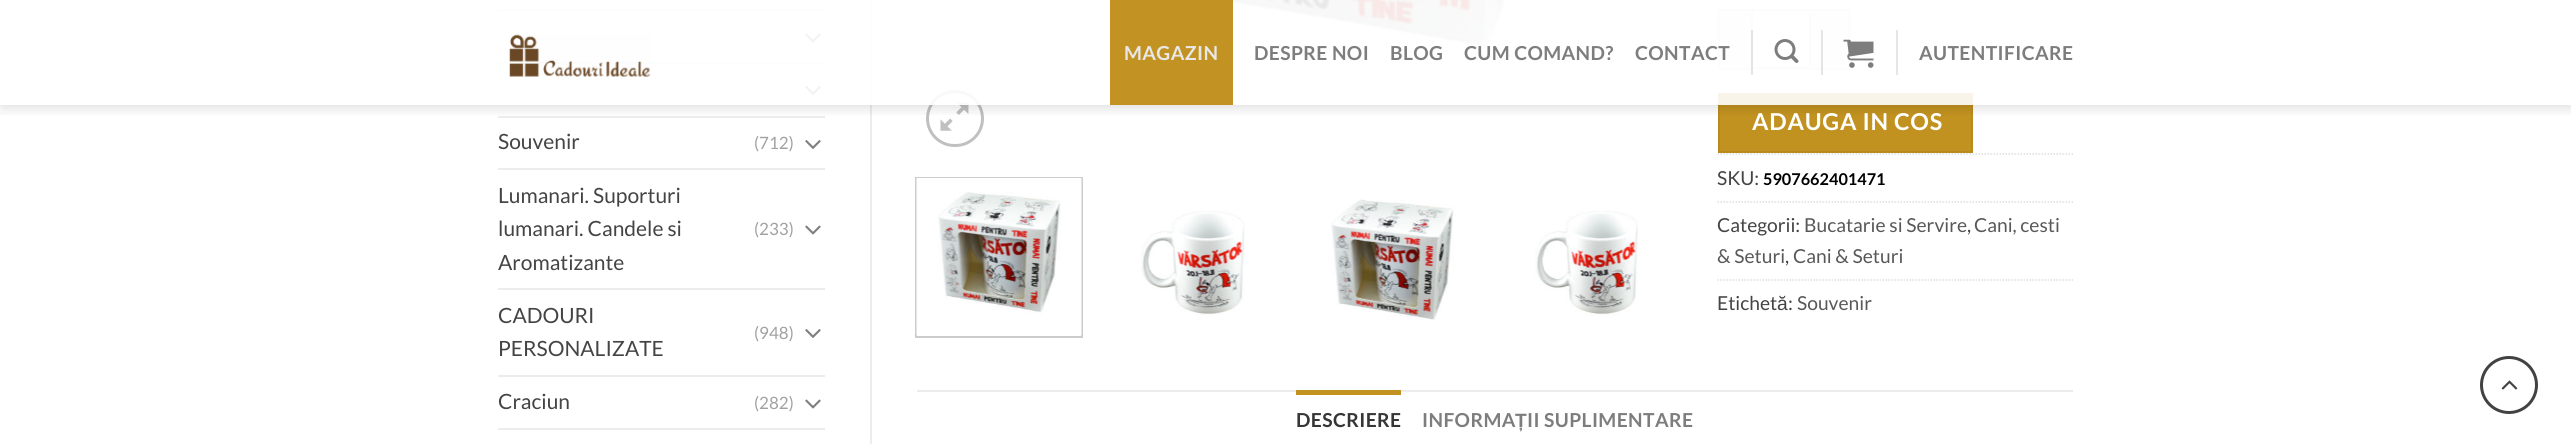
import math
import cairo

surface = cairo.ImageSurface(cairo.FORMAT_RGB24, 2571, 444)
cr = cairo.Context(surface)
options = cairo.FontOptions()
options.set_hint_metrics(cairo.HINT_METRICS_OFF)
options.set_hint_style(cairo.HINT_STYLE_NONE)
cr.set_font_options(options)
cr.set_miter_limit(4)


def rgb(code):
    cr.set_source_rgb(*(v / 255 for v in bytes.fromhex(code[-6:])))


def tracked(x, y, s, letter, word):
    cr.move_to(x, y)
    for ch in s:
        cr.show_text(ch)
        cr.rel_move_to(letter + word * (ch == ' '), 0)


def rrect(x, y, w, h, r):
    cr.new_sub_path()
    for i, (u, v) in enumerate([(x + w - r, y + h - r), (x + r, y + h - r), (x + r, y + r), (x + w - r, y + r)]):
        cr.arc(u, v, r, i * math.pi / 2, (i + 1) * math.pi / 2)
    cr.close_path()


def soft_shadow(x, y, w, h, r, blur, alpha):
    cr.push_group_with_content(cairo.CONTENT_ALPHA)
    cr.set_operator(cairo.OPERATOR_SOURCE)
    for i in range(15, -16, -2):
        e = blur * i / 6
        if min(w, h) + 2 * e > 0:
            cr.set_source_rgba(0, 0, 0, alpha * math.erfc((i - 1) / 8.5) / 2)
            rrect(x - e, y - e, w + 2 * e, h + 2 * e, max(0, min(r + e + blur * .6, min(w, h) / 2 + e)))
            cr.fill()
    cr.mask(cr.pop_group())


def image(path, x, y, w, h):
    cr.save()
    cr.set_source_surface(cairo.ImageSurface.create_from_png(path), x, y)
    cr.rectangle(x, y, w, h)
    cr.fill()
    cr.restore()


rgb("#ffffff")
cr.paint()
rgb("#ececec")
cr.rectangle(498, 9, 327, 2)
cr.fill()
image("img/4.png", 805, 33, 16, 10)
cr.rectangle(498, 62, 327, 2)
cr.fill()
image("img/5.png", 805, 86, 16, 9)
cr.rectangle(498, 116, 327, 2)
cr.fill()
cr.rectangle(870, 0, 2, 444)
cr.fill()
image("img/6.png", 1233, 0, 273, 48)
rrect(927.5, 91.5, 55, 54, 27)
rgb("#c0c0c0")
cr.set_line_width(3)
cr.stroke()
image("img/7.png", 940, 102, 29, 29)
for x, y, w, h, color in [
    (1720, 11, 31, 57, "#f9f9f9"),
    (1718, 9, 33, 2, "#dddddd"),
    (1718, 68, 33, 2, "#dddddd"),
    (1718, 9, 2, 60, "#dddddd"),
]:
    rgb(color)
    cr.rectangle(x, y, w, h)
    cr.fill()
cr.rectangle(1752, 10, 58, 58)
cr.set_line_width(2)
cr.stroke()
for x, y, w, h, color in [
    (1811, 11, 37, 57, "#f9f9f9"),
    (1811, 9, 39, 2, "#dddddd"),
    (1848, 9, 2, 60, "#dddddd"),
    (1811, 68, 39, 2, "#dddddd"),
]:
    rgb(color)
    cr.rectangle(x, y, w, h)
    cr.fill()
rgb("#c29220")
cr.rectangle(1719, 94, 253, 58)
cr.fill_preserve()
rgb("#b88b1e")
cr.stroke()
cr.save()
cr.rectangle(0, 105, 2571, 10)
cr.clip()
rgb("#000000")
soft_shadow(2, 2, 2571, 105, 0, 7.5, 0.15)
cr.restore()
cr.set_source_rgba(1, 1, 1, 0.9)
cr.rectangle(498, 0, 1475, 105)
cr.fill()
image("img/1.png", 509, 34, 142, 43)
rgb("#c29222")
cr.rectangle(1110, 0, 123, 105)
cr.fill()
cr.set_source_rgba(0, 0, 0, 0.1)
cr.rectangle(1751, 30, 2, 45)
cr.fill()
image("img/2.png", 1774, 39, 25, 24)
cr.rectangle(1821, 30, 2, 45)
cr.fill()
image("img/3.png", 1843, 39, 31, 29)
rgb("#e6e6e6")
cr.rectangle(1896, 30, 2, 45)
cr.fill()
image("img/5.png", 805, 140, 16, 9)
rgb("#ececec")
cr.rectangle(498, 168, 327, 2)
cr.fill()
image("img/4.png", 805, 225, 16, 10)
cr.rectangle(498, 288, 327, 2)
cr.fill()
image("img/5.png", 805, 329, 16, 9)
cr.rectangle(498, 375, 327, 2)
cr.fill()
image("img/4.png", 805, 399, 16, 10)
cr.rectangle(498, 428, 327, 2)
cr.fill()
cr.rectangle(916, 178, 166, 159)
rgb("#cccccc")
cr.stroke()
image("img/8.png", 916, 178, 166, 158)
image("img/9.png", 1141, 211, 104, 104)
image("img/10.png", 1331, 199, 123, 121)
image("img/11.png", 1535, 211, 103, 104)
cr.new_path()
cr.move_to(1717.5, 154)
cr.line_to(2073, 154)
rgb("#dddddd")
cr.set_line_width(1.5)
cr.set_dash([1.5, 1.5])
cr.stroke()
cr.new_path()
cr.move_to(1717.5, 202)
cr.line_to(2073, 202)
cr.stroke()
cr.new_path()
cr.move_to(1717.5, 280)
cr.line_to(2073, 280)
cr.stroke()
rgb("#ececec")
cr.rectangle(917, 390, 1156, 2)
cr.fill()
rgb("#c29220")
cr.rectangle(1296, 390, 105, 5)
cr.fill()
cr.arc(2509, 385, 27.5, 0, 2 * math.pi)
rgb("#424242")
cr.set_line_width(3)
cr.set_dash([])
cr.stroke()
image("img/12.png", 2501, 380, 17, 10)
cr.select_font_face("Lato", cairo.FONT_SLANT_NORMAL, cairo.FONT_WEIGHT_BOLD)
cr.set_font_size(19.25)
rgb("#e8e8e8")
tracked(1124, 60, "MAGAZIN", 0.4, 0)
rgb("#7d7d7d")
for x, y, s in [
    (1254, 60, "DESPRE NOI"),
    (1390, 60, "BLOG"),
    (1464, 60, "CUM COMAND?"),
    (1635, 60, "CONTACT"),
    (1919, 60, "AUTENTIFICARE"),
]:
    tracked(x, y, s, 0.4, 0)
cr.select_font_face("Lato")
cr.set_font_size(21)
rgb("#444444")
cr.move_to(498, 149)
cr.show_text("Souvenir")
cr.set_font_size(17)
rgb("#a1a1a1")
cr.move_to(754, 149)
cr.show_text("(712)")
cr.set_font_size(21)
rgb("#444444")
for x, y, s in [
    (498, 203, "Lumanari. Suporturi"),
    (498, 236, "lumanari. Candele si"),
    (498, 270, "Aromatizante"),
]:
    cr.move_to(x, y)
    cr.show_text(s)
cr.set_font_size(17)
rgb("#a1a1a1")
cr.move_to(754, 235)
cr.show_text("(233)")
cr.set_font_size(21)
rgb("#444444")
cr.move_to(498, 323)
cr.show_text("CADOURI")
cr.move_to(498, 356)
cr.show_text("PERSONALIZATE")
cr.set_font_size(17)
rgb("#a1a1a1")
cr.move_to(754, 339)
cr.show_text("(948)")
cr.set_font_size(21)
rgb("#444444")
cr.move_to(498, 409)
cr.show_text("Craciun")
cr.set_font_size(17)
rgb("#a1a1a1")
cr.move_to(754, 409)
cr.show_text("(282)")
cr.select_font_face("Lato", cairo.FONT_SLANT_NORMAL, cairo.FONT_WEIGHT_BOLD)
cr.set_font_size(23.25)
rgb("#ffffff")
tracked(1752, 130, "ADAUGA IN COS", 0.75, 0)
cr.select_font_face("Lato")
cr.set_font_size(19.25)
rgb("#444444")
cr.move_to(1717, 185)
cr.show_text("SKU:")
cr.select_font_face("Lato", cairo.FONT_SLANT_NORMAL, cairo.FONT_WEIGHT_BOLD)
cr.set_font_size(16.25)
rgb("#000000")
cr.move_to(1763, 185)
cr.show_text("5907662401471")
cr.select_font_face("Lato")
cr.set_font_size(19.25)
rgb("#444444")
cr.move_to(1717, 232)
cr.show_text("Categorii:")
rgb("#585858")
cr.move_to(1804, 232)
cr.show_text("Bucatarie si Servire")
rgb("#444444")
cr.move_to(1967, 232)
cr.show_text(",")
rgb("#585858")
cr.move_to(1974, 232)
cr.show_text("Cani, cesti")
cr.move_to(1717, 263)
cr.show_text("& Seturi")
rgb("#444444")
cr.move_to(1785, 263)
cr.show_text(",")
rgb("#585858")
cr.move_to(1793, 263)
cr.show_text("Cani & Seturi")
rgb("#444444")
cr.move_to(1717, 310)
cr.show_text("Etichet")
cr.select_font_face("Liberation Sans")
cr.move_to(1777, 310)
cr.show_text("ă")
cr.select_font_face("Lato")
cr.move_to(1788, 310)
cr.show_text(":")
rgb("#585858")
cr.move_to(1797, 310)
cr.show_text("Souvenir")
cr.select_font_face("Lato", cairo.FONT_SLANT_NORMAL, cairo.FONT_WEIGHT_BOLD)
rgb("#363636")
tracked(1296, 427, "DESCRIERE", 0.4, 0)
rgb("#7d7d7d")
tracked(1422, 427, "INFORMA", 0.4, 0)
cr.select_font_face("Liberation Sans", cairo.FONT_SLANT_NORMAL, cairo.FONT_WEIGHT_BOLD)
tracked(1515, 427, "Ț", 0.4, 0)
cr.select_font_face("Lato", cairo.FONT_SLANT_NORMAL, cairo.FONT_WEIGHT_BOLD)
tracked(1527, 427, "II SUPLIMENTARE", 0.4, 0)
surface.write_to_png("page.png")
